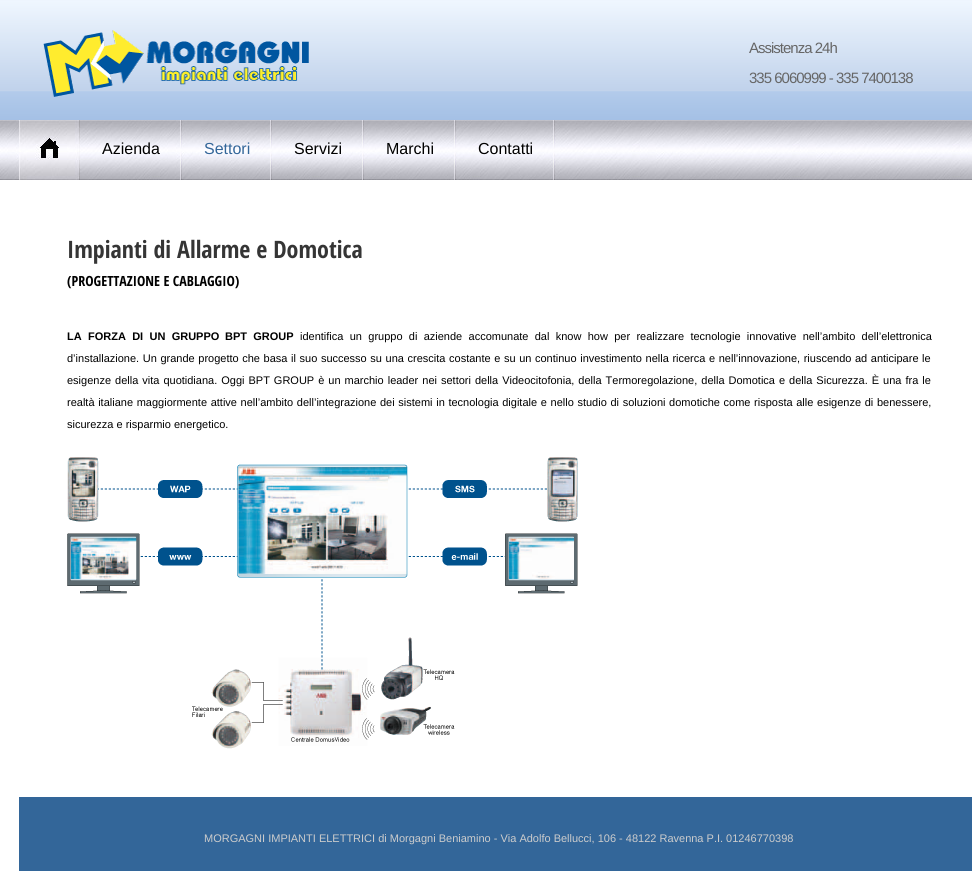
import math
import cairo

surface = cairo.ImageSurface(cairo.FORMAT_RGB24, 972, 871)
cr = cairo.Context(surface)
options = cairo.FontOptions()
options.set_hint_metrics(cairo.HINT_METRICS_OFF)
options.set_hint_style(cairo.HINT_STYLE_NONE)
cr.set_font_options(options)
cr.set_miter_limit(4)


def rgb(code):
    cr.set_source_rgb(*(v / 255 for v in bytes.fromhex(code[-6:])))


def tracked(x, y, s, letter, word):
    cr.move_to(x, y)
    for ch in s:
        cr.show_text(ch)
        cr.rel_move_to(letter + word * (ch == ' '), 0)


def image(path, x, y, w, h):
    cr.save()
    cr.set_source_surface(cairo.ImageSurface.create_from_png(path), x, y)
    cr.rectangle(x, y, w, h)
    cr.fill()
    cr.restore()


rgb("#ffffff")
cr.paint()
image("img/1.png", 0, 0, 972, 120)
image("img/2.png", 43, 30, 266, 67)
image("img/3.png", 0, 120, 972, 60)
image("img/4.png", 19, 120, 61, 60)
image("img/5.png", 180, 120, 2, 60)
image("img/5.png", 270, 120, 2, 60)
image("img/5.png", 362, 120, 2, 60)
image("img/5.png", 454, 120, 2, 60)
image("img/5.png", 553, 120, 2, 60)
image("img/6.png", 67, 457, 511, 292)
rgb("#336699")
cr.rectangle(19, 797, 953, 74)
cr.fill()
cr.select_font_face("Liberation Sans")
cr.set_font_size(15)
rgb("#666666")
tracked(749, 53, "Assistenza 24h", -1, 0)
tracked(749, 83, "335 6060999 - 335 7400138", -1, 0)
cr.set_font_size(16)
rgb("#000000")
cr.move_to(102, 154)
cr.show_text("Azienda")
rgb("#336699")
cr.move_to(204, 154)
cr.show_text("Settori")
rgb("#000000")
for x, y, s in [
    (294, 154, "Servizi"),
    (386, 154, "Marchi"),
    (478, 154, "Contatti"),
]:
    cr.move_to(x, y)
    cr.show_text(s)
cr.select_font_face("Open Sans Condensed", cairo.FONT_SLANT_NORMAL, cairo.FONT_WEIGHT_BOLD)
cr.set_font_size(24)
rgb("#353535")
cr.move_to(67, 258)
cr.show_text("Impianti di Allarme e Domotica")
cr.set_font_size(14)
rgb("#000000")
cr.move_to(67, 286)
cr.show_text("(PROGETTAZIONE E CABLAGGIO)")
cr.select_font_face("Liberation Sans", cairo.FONT_SLANT_NORMAL, cairo.FONT_WEIGHT_BOLD)
cr.set_font_size(11)
tracked(67, 340, "LA FORZA DI UN GRUPPO", 0, 3.25)
tracked(225, 340, "BPT GROUP", 0, 3.25)
cr.select_font_face("Liberation Sans")
tracked(300, 340, "identifica un gruppo di aziende accomunate dal know how per realizzare tecnologie innovative nell’ambito dell’elettronica", 0, 3.25)
tracked(67, 362, "d’installazione. Un grande progetto che basa il suo successo su una crescita costante e su un continuo investimento nella ricerca e nell’innovazione, riuscendo ad anticipare le", 0, 0.55)
tracked(67, 384, "esigenze della vita quotidiana. Oggi BPT GROUP è un marchio leader nei settori della Videocitofonia, della Termoregolazione, della Domotica e della Sicurezza. È una fra le", 0, 0.95)
tracked(67, 406, "realtà italiane maggiormente attive nell’ambito dell’integrazione dei sistemi in tecnologia digitale e nello studio di soluzioni domotiche come risposta alle esigenze di benessere,", 0, 0.6)
cr.move_to(67, 428)
cr.show_text("sicurezza e risparmio energetico.")
rgb("#cccccc")
cr.move_to(204, 842)
cr.show_text("MORGAGNI IMPIANTI ELETTRICI di Morgagni Beniamino - Via Adolfo Bellucci, 106 - 48122 Ravenna P.I. 01246770398")
surface.write_to_png("page.png")
